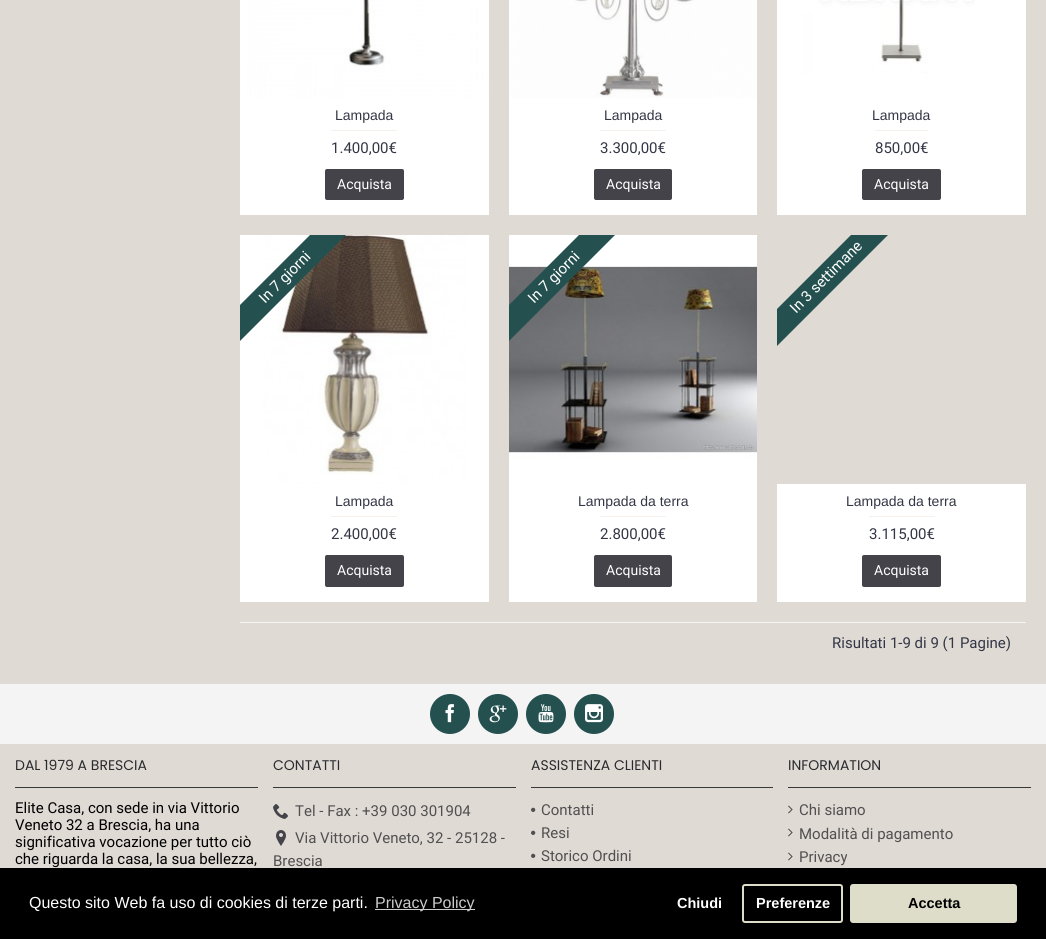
import math
import cairo

surface = cairo.ImageSurface(cairo.FORMAT_RGB24, 1046, 939)
cr = cairo.Context(surface)
options = cairo.FontOptions()
options.set_hint_metrics(cairo.HINT_METRICS_OFF)
options.set_hint_style(cairo.HINT_STYLE_NONE)
cr.set_font_options(options)
cr.set_miter_limit(4)


def rgb(code):
    cr.set_source_rgb(*(v / 255 for v in bytes.fromhex(code[-6:])))


def rrect(x, y, w, h, r):
    cr.new_sub_path()
    for i, (u, v) in enumerate([(x + w - r, y + h - r), (x + r, y + h - r), (x + r, y + r), (x + w - r, y + r)]):
        cr.arc(u, v, r, i * math.pi / 2, (i + 1) * math.pi / 2)
    cr.close_path()


def image(path, x, y, w, h):
    cr.save()
    cr.set_source_surface(cairo.ImageSurface.create_from_png(path), x, y)
    cr.rectangle(x, y, w, h)
    cr.fill()
    cr.restore()


rgb("#e0dad5")
cr.paint()
image("img/1.png", 240, 0, 249, 98)
rgb("#ffffff")
cr.rectangle(240, 98, 249, 117)
cr.fill()
rgb("#f6f1ec")
cr.rectangle(331, 130, 66, 1)
cr.fill()
rgb("#444349")
rrect(325, 169, 79, 31, 2)
cr.fill()
image("img/2.png", 509, 0, 248, 98)
rgb("#ffffff")
cr.rectangle(509, 98, 248, 117)
cr.fill()
rgb("#f6f1ec")
cr.rectangle(600, 130, 66, 1)
cr.fill()
rgb("#444349")
rrect(594, 169, 78, 31, 2)
cr.fill()
image("img/3.png", 777, 0, 249, 98)
rgb("#ffffff")
cr.rectangle(777, 98, 249, 117)
cr.fill()
rgb("#f6f1ec")
cr.rectangle(875, 130, 53, 1)
cr.fill()
rgb("#444349")
rrect(862, 169, 79, 31, 2)
cr.fill()
image("img/4.png", 240, 235, 249, 249)
cr.save()
cr.rectangle(240, 235, 249, 249)
cr.clip()
rgb("#24504f")
cr.new_path()
cr.move_to(206, 339)
cr.line_to(347, 198)
cr.line_to(365, 216)
cr.line_to(224, 357)
cr.close_path()
cr.fill()
cr.restore()
rgb("#ffffff")
cr.rectangle(240, 484, 249, 118)
cr.fill()
rgb("#f6f1ec")
cr.rectangle(331, 516, 66, 1)
cr.fill()
rgb("#444349")
rrect(325, 555, 79, 32, 2)
cr.fill()
image("img/5.png", 509, 235, 248, 249)
cr.save()
cr.rectangle(509, 235, 248, 249)
cr.clip()
rgb("#24504f")
cr.new_path()
cr.move_to(475, 339)
cr.line_to(616, 198)
cr.line_to(634, 216)
cr.line_to(493, 357)
cr.close_path()
cr.fill()
cr.restore()
rgb("#ffffff")
cr.rectangle(509, 484, 248, 118)
cr.fill()
rgb("#f6f1ec")
cr.rectangle(600, 516, 66, 1)
cr.fill()
rgb("#444349")
rrect(594, 555, 78, 32, 2)
cr.fill()
cr.save()
cr.rectangle(777, 235, 249, 249)
cr.clip()
rgb("#24504f")
cr.new_path()
cr.move_to(741, 345)
cr.line_to(893, 193)
cr.line_to(912, 211)
cr.line_to(760, 363)
cr.close_path()
cr.fill()
cr.restore()
rgb("#ffffff")
cr.rectangle(777, 484, 249, 118)
cr.fill()
rgb("#f6f1ec")
cr.rectangle(869, 516, 66, 1)
cr.fill()
rgb("#444349")
rrect(862, 555, 79, 32, 2)
cr.fill()
rgb("#f4f4f4")
cr.rectangle(240, 622, 786, 1)
cr.fill()
cr.rectangle(0, 684, 1046, 60)
cr.fill()
rgb("#24504f")
cr.arc(450, 714, 20, 0, 2 * math.pi)
cr.fill()
image("img/6.png", 445, 704, 9, 19)
cr.arc(498, 714, 20, 0, 2 * math.pi)
cr.fill()
image("img/7.png", 489, 705, 18, 18)
cr.arc(546, 714, 20, 0, 2 * math.pi)
cr.fill()
image("img/8.png", 538, 704, 16, 19)
cr.arc(594, 714, 20, 0, 2 * math.pi)
cr.fill()
image("img/9.png", 585, 704, 18, 19)
rgb("#383838")
cr.rectangle(15, 787, 243, 1)
cr.fill()
cr.rectangle(273, 787, 243, 1)
cr.fill()
image("img/10.png", 273, 804, 15, 15)
image("img/11.png", 276, 830, 10, 16)
cr.rectangle(531, 787, 242, 1)
cr.fill()
image("img/12.png", 531, 807, 5, 5)
image("img/12.png", 531, 830, 5, 5)
image("img/12.png", 531, 853, 5, 5)
cr.rectangle(788, 787, 243, 1)
cr.fill()
image("img/13.png", 788, 805, 5, 9)
image("img/13.png", 788, 828, 5, 9)
image("img/13.png", 788, 852, 5, 9)
rgb("#000000")
cr.rectangle(0, 868, 1046, 71)
cr.fill()
rgb("#cccccc")
cr.rectangle(375, 909, 100, 1)
cr.fill()
rrect(743, 885, 99, 37, 2)
rgb("#deddc9")
cr.stroke()
rrect(850, 884, 167, 39, 3)
cr.fill()
cr.select_font_face("Liberation Sans")
cr.set_font_size(14)
rgb("#333745")
cr.move_to(335, 120)
cr.show_text("Lampada")
cr.select_font_face("Roboto")
cr.set_font_size(15)
cr.move_to(331, 153)
cr.show_text("1.400,00€")
cr.set_font_size(14)
rgb("#ffffff")
cr.move_to(337, 189)
cr.show_text("Acquista")
cr.select_font_face("Liberation Sans")
rgb("#333745")
cr.move_to(604, 120)
cr.show_text("Lampada")
cr.select_font_face("Roboto")
cr.set_font_size(15)
cr.move_to(600, 153)
cr.show_text("3.300,00€")
cr.set_font_size(14)
rgb("#ffffff")
cr.move_to(606, 189)
cr.show_text("Acquista")
cr.select_font_face("Liberation Sans")
rgb("#333745")
cr.move_to(872, 120)
cr.show_text("Lampada")
cr.select_font_face("Roboto")
cr.set_font_size(15)
cr.move_to(875, 153)
cr.show_text("850,00€")
cr.set_font_size(14)
rgb("#ffffff")
cr.move_to(874, 189)
cr.show_text("Acquista")
cr.set_font_size(15)
cr.save()
cr.translate(265, 304)
cr.rotate(-45 * math.pi / 180)
cr.move_to(0, 0)
cr.show_text("In 7 giorni")
cr.restore()
cr.select_font_face("Liberation Sans")
cr.set_font_size(14)
rgb("#333745")
cr.move_to(335, 506)
cr.show_text("Lampada")
cr.select_font_face("Roboto")
cr.set_font_size(15)
cr.move_to(331, 539)
cr.show_text("2.400,00€")
cr.set_font_size(14)
rgb("#ffffff")
cr.move_to(337, 575)
cr.show_text("Acquista")
cr.set_font_size(15)
cr.save()
cr.translate(534, 304)
cr.rotate(-45 * math.pi / 180)
cr.move_to(0, 0)
cr.show_text("In 7 giorni")
cr.restore()
cr.select_font_face("Liberation Sans")
cr.set_font_size(14)
rgb("#333745")
cr.move_to(578, 506)
cr.show_text("Lampada da terra")
cr.select_font_face("Roboto")
cr.set_font_size(15)
cr.move_to(600, 539)
cr.show_text("2.800,00€")
cr.set_font_size(14)
rgb("#ffffff")
cr.move_to(606, 575)
cr.show_text("Acquista")
cr.set_font_size(15)
cr.save()
cr.translate(796, 314)
cr.rotate(-45 * math.pi / 180)
cr.move_to(0, 0)
cr.show_text("In 3 settimane")
cr.restore()
cr.select_font_face("Liberation Sans")
cr.set_font_size(14)
rgb("#333745")
cr.move_to(846, 506)
cr.show_text("Lampada da terra")
cr.select_font_face("Roboto")
cr.set_font_size(15)
cr.move_to(869, 539)
cr.show_text("3.115,00€")
cr.set_font_size(14)
rgb("#ffffff")
cr.move_to(874, 575)
cr.show_text("Acquista")
cr.set_font_size(15)
rgb("#333745")
cr.move_to(832, 648)
cr.show_text("Risultati 1-9 di 9 (1 Pagine)")
cr.select_font_face("Poppins")
cr.set_font_size(14)
rgb("#2a2b2e")
cr.move_to(15, 770)
cr.show_text("DAL 1979 A BRESCIA")
cr.select_font_face("Roboto")
cr.set_font_size(15)
rgb("#000000")
for x, y, s in [
    (15, 813, "Elite Casa, con sede in via Vittorio"),
    (15, 830, "Veneto 32 a Brescia, ha una"),
    (15, 847, "significativa vocazione per tutto ciò"),
    (15, 864, "che riguarda la casa, la sua bellezza,"),
]:
    cr.move_to(x, y)
    cr.show_text(s)
cr.select_font_face("Poppins")
cr.set_font_size(14)
rgb("#2a2b2e")
cr.move_to(273, 770)
cr.show_text("CONTATTI")
cr.select_font_face("Roboto")
cr.set_font_size(15)
rgb("#505050")
for x, y, s in [
    (295, 816, "Tel - Fax : +39 030 301904"),
    (295, 843, "Via Vittorio Veneto, 32 - 25128 -"),
    (273, 866, "Brescia"),
]:
    cr.move_to(x, y)
    cr.show_text(s)
cr.select_font_face("Poppins")
cr.set_font_size(14)
rgb("#2a2b2e")
cr.move_to(531, 770)
cr.show_text("ASSISTENZA CLIENTI")
cr.select_font_face("Roboto")
cr.set_font_size(15)
rgb("#505050")
for x, y, s in [
    (541, 815, "Contatti"),
    (541, 838, "Resi"),
    (541, 861, "Storico Ordini"),
]:
    cr.move_to(x, y)
    cr.show_text(s)
cr.select_font_face("Poppins")
cr.set_font_size(14)
rgb("#2a2b2e")
cr.move_to(788, 770)
cr.show_text("INFORMATION")
cr.select_font_face("Roboto")
cr.set_font_size(15)
rgb("#505050")
for x, y, s in [
    (799, 815, "Chi siamo"),
    (799, 839, "Modalità di pagamento"),
    (799, 862, "Privacy"),
]:
    cr.move_to(x, y)
    cr.show_text(s)
cr.select_font_face("Liberation Sans")
cr.set_font_size(16)
rgb("#ffffff")
cr.move_to(29, 908)
cr.show_text("Questo sito Web fa uso di cookies di terze parti.")
rgb("#cccccc")
cr.move_to(375, 908)
cr.show_text("Privacy Policy")
cr.select_font_face("Liberation Sans", cairo.FONT_SLANT_NORMAL, cairo.FONT_WEIGHT_BOLD)
cr.set_font_size(14.5)
rgb("#ffffff")
cr.move_to(677, 908)
cr.show_text("Chiudi")
cr.move_to(756, 908)
cr.show_text("Preferenze")
rgb("#000000")
cr.move_to(908, 908)
cr.show_text("Accetta")
surface.write_to_png("page.png")
